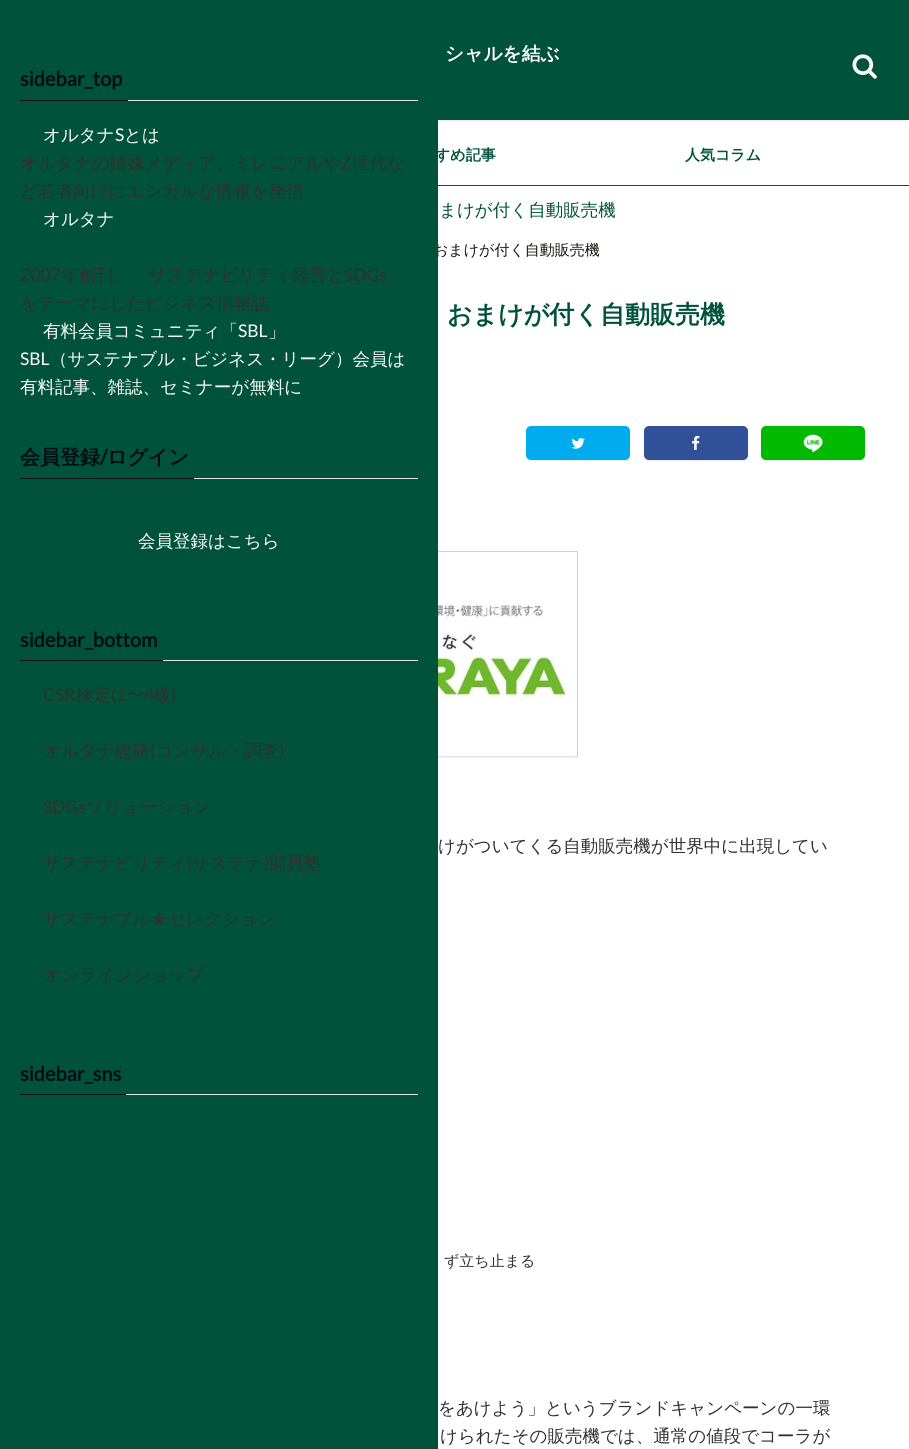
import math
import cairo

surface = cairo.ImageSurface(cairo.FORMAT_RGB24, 909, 1449)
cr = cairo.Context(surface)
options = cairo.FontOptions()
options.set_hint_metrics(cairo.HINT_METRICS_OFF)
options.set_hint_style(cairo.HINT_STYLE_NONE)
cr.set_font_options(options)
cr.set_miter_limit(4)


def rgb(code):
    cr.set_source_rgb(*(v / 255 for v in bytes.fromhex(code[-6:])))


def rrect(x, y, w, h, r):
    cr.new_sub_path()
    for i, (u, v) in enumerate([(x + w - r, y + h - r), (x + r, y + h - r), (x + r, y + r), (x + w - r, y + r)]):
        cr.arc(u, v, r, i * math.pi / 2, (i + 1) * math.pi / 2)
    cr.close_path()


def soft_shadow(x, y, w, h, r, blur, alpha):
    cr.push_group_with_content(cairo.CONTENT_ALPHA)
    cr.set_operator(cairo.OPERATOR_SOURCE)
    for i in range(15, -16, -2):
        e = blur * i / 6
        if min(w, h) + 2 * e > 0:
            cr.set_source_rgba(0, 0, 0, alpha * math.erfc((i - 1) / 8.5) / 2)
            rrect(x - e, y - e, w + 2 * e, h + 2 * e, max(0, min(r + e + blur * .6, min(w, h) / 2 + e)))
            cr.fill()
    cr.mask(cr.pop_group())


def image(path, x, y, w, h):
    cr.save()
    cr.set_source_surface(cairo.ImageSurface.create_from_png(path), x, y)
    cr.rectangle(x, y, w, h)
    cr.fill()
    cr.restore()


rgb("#ffffff")
cr.paint()
rgb("#000000")
soft_shadow(4, 6, 902, 113, 0, 2, 0.3)
rgb("#00523a")
cr.rectangle(438, 0, 471, 120)
cr.fill()
image("img/1.png", 852, 54, 25, 25)
cr.rectangle(438, 185, 471, 1)
cr.fill()
rgb("#000000")
soft_shadow(526, 428, 104, 33, 5, 0.5, 0.08)
rgb("#00acee")
rrect(526, 426, 104, 34, 5)
cr.fill()
image("img/2.png", 571, 438, 14, 11)
rgb("#000000")
soft_shadow(644, 428, 104, 33, 5, 0.5, 0.08)
rgb("#305097")
rrect(644, 426, 104, 34, 5)
cr.fill()
image("img/3.png", 692, 435, 8, 15)
rgb("#000000")
soft_shadow(761, 428, 104, 33, 5, 0.5, 0.08)
rgb("#00b900")
rrect(761, 426, 104, 34, 5)
cr.fill()
image("img/4.png", 803, 434, 20, 19)
image("img/5.png", 438, 551, 140, 207)
cr.select_font_face("WenQuanYi Zen Hei", cairo.FONT_SLANT_NORMAL, cairo.FONT_WEIGHT_BOLD)
cr.set_font_size(18.75)
rgb("#ffffff")
cr.move_to(445, 60)
cr.show_text("シャルを結ぶ")
cr.set_font_size(15)
rgb("#00523a")
cr.move_to(435, 160)
cr.show_text("すめ記事")
cr.move_to(685, 160)
cr.show_text("人気コラム")
cr.select_font_face("WenQuanYi Zen Hei Medium")
cr.set_font_size(17.5)
cr.move_to(439, 216)
cr.show_text("まけが付く自動販売機")
cr.save()
cr.rectangle(204, 243, 396, 15)
cr.clip()
cr.set_font_size(15)
rgb("#161410")
cr.move_to(433, 255)
cr.show_text("おまけが付く自動販売機")
cr.restore()
cr.rectangle(0, 0, 438, 1449)
cr.fill()
cr.select_font_face("Lato", cairo.FONT_SLANT_NORMAL, cairo.FONT_WEIGHT_BOLD)
cr.set_font_size(20)
rgb("#000c15")
cr.move_to(20, 1081)
cr.show_text("sidebar_sns")
rgb("#161410")
cr.rectangle(20, 1094, 106, 1)
cr.fill()
cr.select_font_face("WenQuanYi Zen Hei Medium")
cr.set_font_size(17.5)
rgb("#303030")
for x, y, s in [
    (43, 981, "オンラインショップ"),
    (43, 925, "サステナブル★セレクション"),
    (43, 869, "サステナビリティ サステナ 部員塾"),
]:
    cr.move_to(x, y)
    cr.show_text(s)
cr.select_font_face("Lato")
cr.move_to(264, 869)
cr.show_text(")")
cr.move_to(187, 869)
cr.show_text("(")
cr.select_font_face("WenQuanYi Zen Hei Medium")
cr.move_to(86, 813)
cr.show_text("ソリューション")
cr.select_font_face("Lato")
cr.move_to(43, 813)
cr.show_text("SDGs")
cr.move_to(279, 757)
cr.show_text(")")
cr.select_font_face("WenQuanYi Zen Hei Medium")
cr.move_to(43, 757)
cr.show_text("オルタナ総研 コンサル・調査")
cr.select_font_face("Lato")
cr.move_to(150, 757)
cr.show_text("(")
cr.move_to(171, 701)
cr.show_text(")")
cr.select_font_face("WenQuanYi Zen Hei Medium")
cr.move_to(154, 701)
cr.show_text("級")
cr.select_font_face("Lato")
cr.move_to(144, 701)
cr.show_text("4")
cr.select_font_face("WenQuanYi Zen Hei Medium")
cr.move_to(126, 701)
cr.show_text("〜")
cr.select_font_face("Lato")
cr.move_to(111, 701)
cr.show_text("(1")
cr.select_font_face("WenQuanYi Zen Hei Medium")
cr.move_to(76, 701)
cr.show_text("検定")
cr.select_font_face("Lato")
cr.move_to(43, 701)
cr.show_text("CSR")
cr.select_font_face("Lato", cairo.FONT_SLANT_NORMAL, cairo.FONT_WEIGHT_BOLD)
cr.set_font_size(20)
rgb("#000c15")
cr.move_to(20, 647)
cr.show_text("sidebar_bottom")
rgb("#161410")
cr.rectangle(20, 660, 143, 1)
cr.fill()
cr.select_font_face("WenQuanYi Zen Hei Medium")
cr.set_font_size(17.5)
rgb("#ffffff")
cr.move_to(138, 547)
cr.show_text("会員登録はこちら")
cr.select_font_face("WenQuanYi Zen Hei", cairo.FONT_SLANT_NORMAL, cairo.FONT_WEIGHT_BOLD)
cr.set_font_size(20)
rgb("#000c15")
cr.move_to(107, 464)
cr.show_text("ログイン")
cr.move_to(20, 464)
cr.show_text("会員登録")
cr.select_font_face("Lato", cairo.FONT_SLANT_NORMAL, cairo.FONT_WEIGHT_BOLD)
cr.move_to(100, 464)
cr.show_text("/")
rgb("#161410")
cr.rectangle(20, 478, 174, 1)
cr.fill()
cr.select_font_face("WenQuanYi Zen Hei Medium")
cr.set_font_size(17.5)
rgb("#ffffff")
cr.move_to(20, 393)
cr.show_text("有料記事、雑誌、セミナーが無料に")
cr.move_to(50, 365)
cr.show_text("（サステナブル・ビジネス・リーグ）会員は")
cr.select_font_face("Lato")
cr.move_to(20, 365)
cr.show_text("SBL")
cr.select_font_face("WenQuanYi Zen Hei Medium")
cr.move_to(268, 337)
cr.show_text("」")
cr.select_font_face("Lato")
cr.move_to(238, 337)
cr.show_text("SBL")
cr.select_font_face("WenQuanYi Zen Hei Medium")
cr.move_to(43, 337)
cr.show_text("有料会員コミュニティ「")
rgb("#303030")
cr.move_to(20, 309)
cr.show_text("をテーマにしたビジネス情報誌")
cr.move_to(387, 281)
cr.show_text("」")
cr.select_font_face("Lato")
cr.move_to(344, 281)
cr.show_text("SDGs")
cr.select_font_face("WenQuanYi Zen Hei Medium")
cr.move_to(61, 281)
cr.show_text("年創刊。「サステナビリティ経営と")
cr.select_font_face("Lato")
cr.move_to(20, 281)
cr.show_text("2007")
cr.select_font_face("WenQuanYi Zen Hei Medium")
rgb("#ffffff")
cr.move_to(43, 225)
cr.show_text("オルタナ")
rgb("#303030")
cr.move_to(20, 197)
cr.show_text("ど若者向けにエシカルな情報を発信")
cr.move_to(352, 169)
cr.show_text("世代な")
cr.select_font_face("Lato")
cr.move_to(341, 169)
cr.show_text("Z")
cr.select_font_face("WenQuanYi Zen Hei Medium")
cr.move_to(20, 169)
cr.show_text("オルタナの姉妹メディア。ミレニアルや")
rgb("#ffffff")
cr.move_to(124, 141)
cr.show_text("とは")
cr.select_font_face("Lato")
cr.move_to(115, 141)
cr.show_text("S")
cr.select_font_face("WenQuanYi Zen Hei Medium")
cr.move_to(43, 141)
cr.show_text("オルタナ")
cr.select_font_face("Lato", cairo.FONT_SLANT_NORMAL, cairo.FONT_WEIGHT_BOLD)
cr.set_font_size(20)
rgb("#000c15")
cr.move_to(20, 86)
cr.show_text("sidebar_top")
for x, y, w, h, color in [
    (20, 100, 108, 1, "#161410"),
    (126, 1094, 292, 1, "#e2e5e8"),
    (163, 660, 255, 1, "#e2e5e8"),
    (194, 478, 224, 1, "#e2e5e8"),
    (128, 100, 290, 1, "#e2e5e8"),
]:
    rgb(color)
    cr.rectangle(x, y, w, h)
    cr.fill()
cr.select_font_face("WenQuanYi Zen Hei", cairo.FONT_SLANT_NORMAL, cairo.FONT_WEIGHT_BOLD)
cr.set_font_size(25)
rgb("#00523a")
cr.move_to(447, 323)
cr.show_text("おまけが付く自動販売機")
cr.select_font_face("WenQuanYi Zen Hei Medium")
cr.set_font_size(17.5)
rgb("#303030")
cr.move_to(438, 852)
cr.show_text("けがついてくる自動販売機が世界中に出現してい")
cr.set_font_size(15)
cr.move_to(444, 1266)
cr.show_text("ず立ち止まる")
cr.set_font_size(17.5)
cr.move_to(438, 1414)
cr.show_text("をあけよう」というブランドキャンペーンの一環")
cr.move_to(440, 1442)
cr.show_text("けられたその販売機では、通常の値段でコーラが")
surface.write_to_png("page.png")
